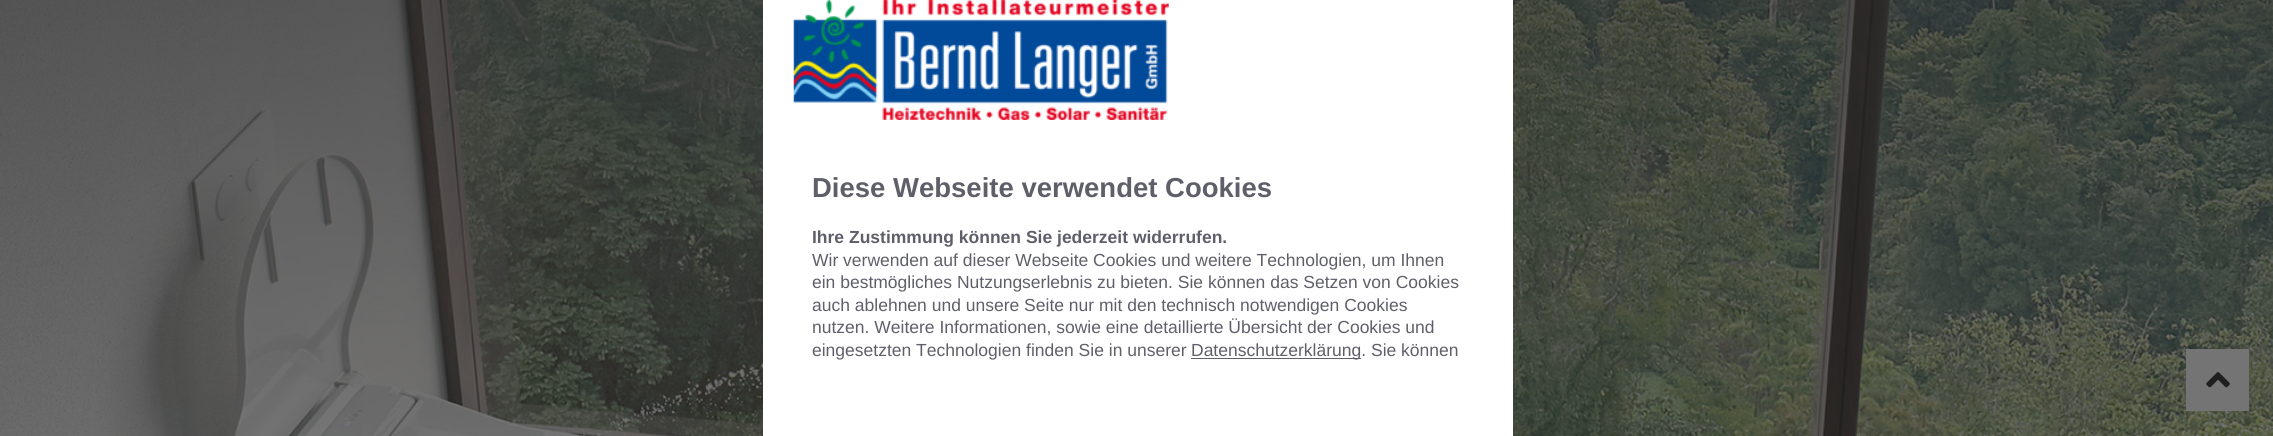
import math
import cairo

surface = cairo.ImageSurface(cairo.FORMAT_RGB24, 2273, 436)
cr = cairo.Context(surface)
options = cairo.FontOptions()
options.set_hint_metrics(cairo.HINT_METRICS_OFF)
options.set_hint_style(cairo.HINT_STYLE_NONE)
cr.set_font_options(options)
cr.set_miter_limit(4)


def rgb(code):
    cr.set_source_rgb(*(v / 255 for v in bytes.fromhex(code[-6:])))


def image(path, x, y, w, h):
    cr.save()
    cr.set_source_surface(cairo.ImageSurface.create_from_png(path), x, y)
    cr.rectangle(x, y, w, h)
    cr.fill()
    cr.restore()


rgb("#ffffff")
cr.paint()
image("img/1.png", 0, 0, 2273, 436)
rgb("#ffffff")
cr.rectangle(763, 0, 750, 436)
cr.fill()
image("img/2.png", 793, 0, 376, 120)
rgb("#5f5f6a")
cr.rectangle(1191, 358, 170, 1)
cr.fill()
rgb("#747474")
cr.rectangle(2186, 349, 63, 62)
cr.fill()
image("img/3.png", 2206, 372, 24, 16)
cr.select_font_face("Liberation Sans", cairo.FONT_SLANT_NORMAL, cairo.FONT_WEIGHT_BOLD)
cr.set_font_size(27.5)
rgb("#5f5f6a")
cr.move_to(812, 197)
cr.show_text("Diese Webseite verwendet Cookies")
cr.set_font_size(17.5)
cr.move_to(812, 243)
cr.show_text("Ihre Zustimmung können Sie jederzeit widerrufen.")
cr.select_font_face("Liberation Sans")
for x, y, s in [
    (812, 266, "Wir verwenden auf dieser Webseite Cookies und weitere Technologien, um Ihnen"),
    (812, 288, "ein bestmögliches Nutzungserlebnis zu bieten. Sie können das Setzen von Cookies"),
    (812, 311, "auch ablehnen und unsere Seite nur mit den technisch notwendigen Cookies"),
    (812, 333, "nutzen. Weitere Informationen, sowie eine detaillierte Übersicht der Cookies und"),
    (812, 356, "eingesetzten Technologien finden Sie in unserer"),
    (1191, 356, "Datenschutzerklärung. Sie können"),
]:
    cr.move_to(x, y)
    cr.show_text(s)
surface.write_to_png("page.png")
